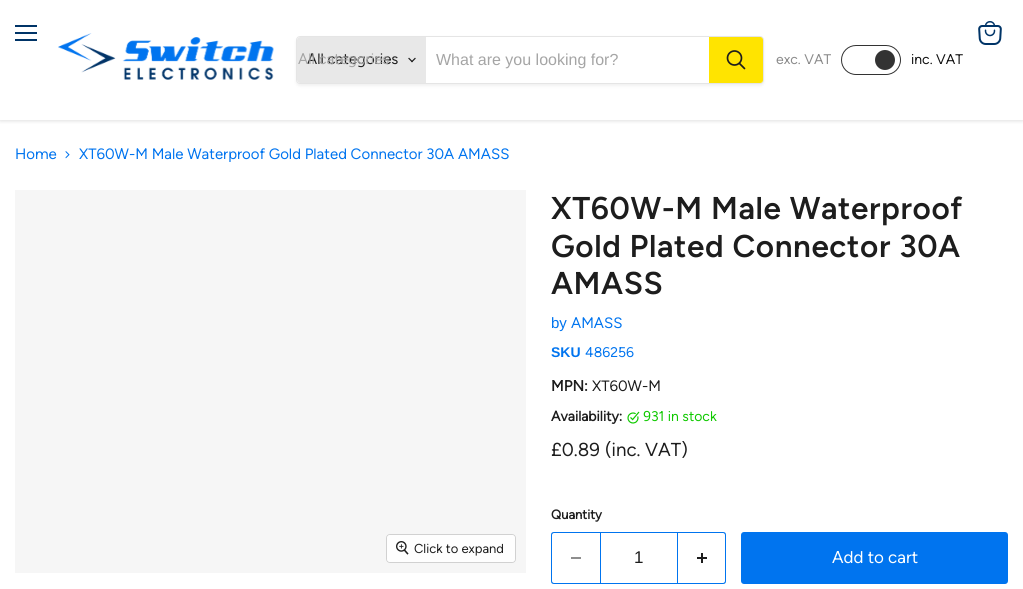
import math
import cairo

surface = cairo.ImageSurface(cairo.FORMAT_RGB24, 1023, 589)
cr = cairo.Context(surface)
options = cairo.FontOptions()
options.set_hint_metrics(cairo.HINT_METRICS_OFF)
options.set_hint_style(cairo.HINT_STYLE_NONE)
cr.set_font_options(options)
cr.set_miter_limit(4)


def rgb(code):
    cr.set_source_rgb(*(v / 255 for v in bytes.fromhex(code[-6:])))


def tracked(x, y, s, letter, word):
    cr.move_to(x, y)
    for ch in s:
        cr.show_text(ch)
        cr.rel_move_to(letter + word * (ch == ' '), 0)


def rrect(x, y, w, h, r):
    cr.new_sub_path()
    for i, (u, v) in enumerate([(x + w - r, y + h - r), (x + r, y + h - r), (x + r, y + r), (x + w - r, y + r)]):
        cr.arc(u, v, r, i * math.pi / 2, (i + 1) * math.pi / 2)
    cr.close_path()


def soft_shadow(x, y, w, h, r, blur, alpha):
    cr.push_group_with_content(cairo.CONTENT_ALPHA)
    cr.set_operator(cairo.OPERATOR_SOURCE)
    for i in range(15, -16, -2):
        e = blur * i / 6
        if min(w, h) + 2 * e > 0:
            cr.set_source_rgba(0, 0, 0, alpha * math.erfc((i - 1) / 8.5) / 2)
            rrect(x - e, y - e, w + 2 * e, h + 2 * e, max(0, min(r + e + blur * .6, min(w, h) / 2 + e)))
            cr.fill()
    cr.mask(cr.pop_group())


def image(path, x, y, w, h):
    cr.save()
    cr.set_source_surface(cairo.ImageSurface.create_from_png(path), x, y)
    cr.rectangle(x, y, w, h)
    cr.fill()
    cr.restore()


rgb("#ffffff")
cr.paint()
cr.save()
cr.rectangle(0, 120, 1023, 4)
cr.clip()
rgb("#808080")
soft_shadow(0, 1, 1023, 120, 0, 2, 0.25)
cr.restore()
for x, y, w, h, color in [
    (15, 25, 22, 2, "#003467"),
    (15, 32, 22, 2, "#003467"),
    (15, 39, 22, 2, "#003467"),
]:
    rgb(color)
    cr.rectangle(x, y, w, h)
    cr.fill()
image("img/1.png", 978, 21, 24, 24)
image("img/2.png", 58, 33, 216, 47)
cr.save()
cr.set_fill_rule(cairo.FILL_RULE_EVEN_ODD)
cr.new_path()
cr.move_to(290, 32)
cr.line_to(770, 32)
cr.line_to(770, 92)
cr.line_to(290, 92)
cr.close_path()
cr.move_to(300, 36)
cr.line_to(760, 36)
cr.curve_to(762, 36, 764, 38, 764, 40)
cr.line_to(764, 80)
cr.curve_to(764, 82, 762, 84, 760, 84)
cr.line_to(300, 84)
cr.curve_to(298, 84, 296, 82, 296, 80)
cr.line_to(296, 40)
cr.curve_to(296, 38, 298, 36, 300, 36)
cr.close_path()
cr.clip()
rgb("#808080")
soft_shadow(296, 38, 468, 48, 4, 1.5, 0.11)
cr.restore()
rrect(296.5, 36.5, 467, 47, 3.5)
cr.set_source_rgba(0.502, 0.502, 0.502, 0.2)
cr.set_line_width(1)
cr.stroke()
rgb("#e8e8e8")
cr.new_path()
cr.move_to(300, 37)
cr.line_to(426, 37)
cr.line_to(426, 83)
cr.line_to(300, 83)
cr.curve_to(298.5, 83, 297, 81.5, 297, 80)
cr.line_to(297, 40)
cr.curve_to(297, 38.5, 298.5, 37, 300, 37)
cr.close_path()
cr.fill()
image("img/3.png", 408, 57, 8, 6)
rgb("#ffe400")
cr.new_path()
cr.move_to(709.5, 37.5)
cr.line_to(760, 37.5)
cr.curve_to(761.5, 37.5, 762.5, 38.5, 762.5, 40)
cr.line_to(762.5, 80)
cr.curve_to(762.5, 81.5, 761.5, 82.5, 760, 82.5)
cr.line_to(709.5, 82.5)
cr.close_path()
cr.fill_preserve()
cr.stroke()
cr.new_path()
cr.move_to(744.5, 68.5)
cr.line_to(739.5, 63.5)
rgb("#1d1d1d")
cr.set_line_width(1.7)
cr.set_line_cap(cairo.LINE_CAP_ROUND)
cr.stroke()
cr.arc(734.5, 58, 7, 0, 2 * math.pi)
cr.set_line_cap(cairo.LINE_CAP_BUTT)
cr.stroke()
rrect(841.5, 45.5, 59, 29, 14.5)
rgb("#333333")
cr.set_line_width(1)
cr.stroke()
cr.arc(885, 60, 10, 0, 2 * math.pi)
cr.fill()
image("img/4.png", 65, 151, 5, 8)
rgb("#f6f6f6")
cr.rectangle(15, 190, 511, 383)
cr.fill()
rrect(386.5, 534.5, 129, 28, 3.5)
rgb("#d1d1d1")
cr.stroke()
cr.set_source_rgba(1, 1, 1, 0.9)
rrect(387, 535, 128, 27, 3)
cr.fill()
image("img/5.png", 396, 541, 13, 14)
image("img/6.png", 627, 411, 13, 13)
rgb("#0074ef")
cr.set_fill_rule(cairo.FILL_RULE_EVEN_ODD)
cr.new_path()
cr.move_to(554, 532)
cr.line_to(600, 532)
cr.line_to(600, 584)
cr.line_to(554, 584)
cr.curve_to(552, 584, 551, 583, 551, 581)
cr.line_to(551, 535)
cr.curve_to(551, 533, 552, 532, 554, 532)
cr.close_path()
cr.move_to(554, 533)
cr.line_to(600, 533)
cr.line_to(600, 583)
cr.line_to(554, 583)
cr.curve_to(553, 583, 552, 582, 552, 581)
cr.line_to(552, 535)
cr.curve_to(552, 534, 553, 533, 554, 533)
cr.close_path()
cr.fill()
rgb("#8e8e8e")
cr.rectangle(571, 557, 10, 2)
cr.fill()
cr.rectangle(600.5, 532.5, 77, 51)
rgb("#0074ef")
cr.stroke()
cr.new_path()
cr.move_to(678, 532)
cr.line_to(723, 532)
cr.curve_to(725, 532, 726, 533, 726, 535)
cr.line_to(726, 581)
cr.curve_to(726, 583, 725, 584, 723, 584)
cr.line_to(678, 584)
cr.close_path()
cr.move_to(678, 533)
cr.line_to(723, 533)
cr.curve_to(724, 533, 725, 534, 725, 535)
cr.line_to(725, 581)
cr.curve_to(725, 582, 724, 583, 723, 583)
cr.line_to(678, 583)
cr.close_path()
cr.fill()
image("img/7.png", 697, 553, 10, 10)
rrect(741, 532, 267, 52, 3)
cr.fill()
cr.select_font_face("Figtree")
cr.set_font_size(15)
rgb("#1d1d1d")
cr.move_to(307, 64)
cr.show_text("All categories")
rgb("#a5a5a5")
cr.move_to(298, 64)
cr.show_text("All categories")
cr.select_font_face("Liberation Sans")
cr.set_font_size(16)
cr.move_to(436, 65)
cr.show_text("What are you looking for?")
cr.select_font_face("Figtree")
cr.set_font_size(14)
rgb("#8c8c8c")
cr.move_to(776, 64)
cr.show_text("exc. VAT")
rgb("#121212")
cr.move_to(911, 64)
cr.show_text("inc. VAT")
cr.set_font_size(15)
rgb("#0074ef")
cr.move_to(15, 159)
cr.show_text("Home")
cr.move_to(79, 159)
cr.show_text("XT60W-M Male Waterproof Gold Plated Connector 30A AMASS")
cr.set_font_size(13)
rgb("#1d1d1d")
cr.move_to(414, 553)
cr.show_text("Click to expand")
cr.select_font_face("Figtree SemiBold")
cr.set_font_size(31.5)
for x, y, s in [
    (551, 219, "XT60W-M Male Waterproof"),
    (551, 257, "Gold Plated Connector 30A"),
    (551, 294, "AMASS"),
]:
    tracked(x, y, s, 0.6, 0)
cr.select_font_face("Liberation Sans")
cr.set_font_size(15)
rgb("#0074ef")
cr.move_to(551, 328)
cr.show_text("by")
cr.select_font_face("Figtree")
cr.move_to(571, 328)
cr.show_text("AMASS")
cr.select_font_face("Liberation Sans", cairo.FONT_SLANT_NORMAL, cairo.FONT_WEIGHT_BOLD)
cr.set_font_size(14)
cr.move_to(551, 357)
cr.show_text("SKU")
cr.select_font_face("Figtree")
cr.move_to(585, 357)
cr.show_text("486256")
cr.select_font_face("Figtree", cairo.FONT_SLANT_NORMAL, cairo.FONT_WEIGHT_BOLD)
cr.set_font_size(15)
rgb("#1d1d1d")
cr.move_to(551, 391)
cr.show_text("MPN:")
cr.select_font_face("Figtree")
cr.move_to(592, 391)
cr.show_text("XT60W-M")
cr.select_font_face("Figtree", cairo.FONT_SLANT_NORMAL, cairo.FONT_WEIGHT_BOLD)
cr.set_font_size(14)
cr.move_to(551, 421)
cr.show_text("Availability:")
cr.select_font_face("Noto Sans")
rgb("#0fc900")
cr.move_to(643, 421)
cr.show_text("9")
cr.select_font_face("Figtree")
cr.move_to(651, 421)
cr.show_text("31 in stock")
cr.set_font_size(18.75)
rgb("#1d1d1d")
cr.move_to(551, 456)
cr.show_text("£0.89")
cr.move_to(605, 456)
cr.show_text("(inc. VAT)")
cr.select_font_face("Figtree", cairo.FONT_SLANT_NORMAL, cairo.FONT_WEIGHT_BOLD)
cr.set_font_size(13)
cr.move_to(551, 519)
cr.show_text("Quantity")
cr.select_font_face("Liberation Sans")
cr.set_font_size(17)
cr.move_to(634, 563)
cr.show_text("1")
cr.select_font_face("Figtree")
rgb("#ffffff")
cr.move_to(832, 563)
cr.show_text("Add to cart")
surface.write_to_png("page.png")
